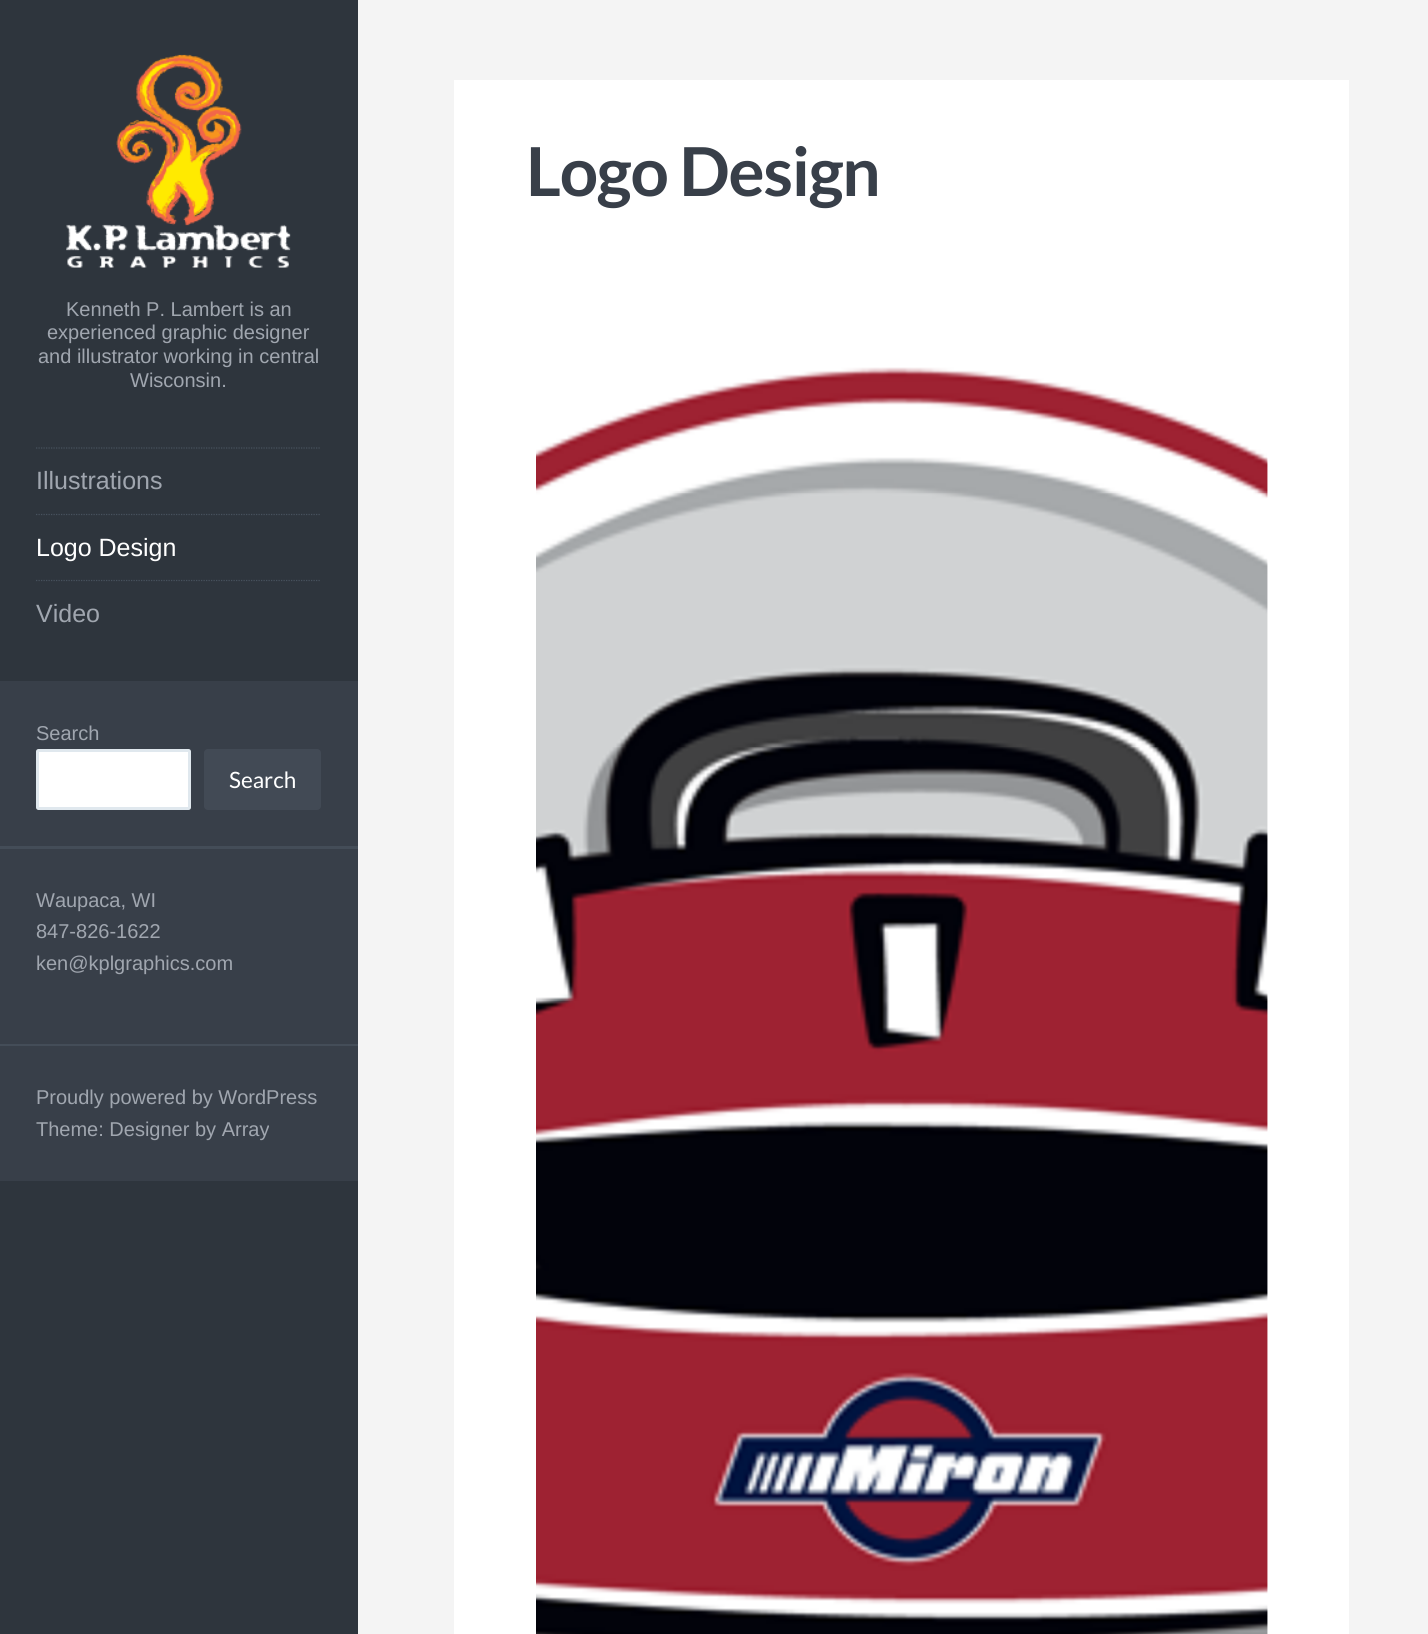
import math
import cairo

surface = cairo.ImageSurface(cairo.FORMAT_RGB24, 1428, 1634)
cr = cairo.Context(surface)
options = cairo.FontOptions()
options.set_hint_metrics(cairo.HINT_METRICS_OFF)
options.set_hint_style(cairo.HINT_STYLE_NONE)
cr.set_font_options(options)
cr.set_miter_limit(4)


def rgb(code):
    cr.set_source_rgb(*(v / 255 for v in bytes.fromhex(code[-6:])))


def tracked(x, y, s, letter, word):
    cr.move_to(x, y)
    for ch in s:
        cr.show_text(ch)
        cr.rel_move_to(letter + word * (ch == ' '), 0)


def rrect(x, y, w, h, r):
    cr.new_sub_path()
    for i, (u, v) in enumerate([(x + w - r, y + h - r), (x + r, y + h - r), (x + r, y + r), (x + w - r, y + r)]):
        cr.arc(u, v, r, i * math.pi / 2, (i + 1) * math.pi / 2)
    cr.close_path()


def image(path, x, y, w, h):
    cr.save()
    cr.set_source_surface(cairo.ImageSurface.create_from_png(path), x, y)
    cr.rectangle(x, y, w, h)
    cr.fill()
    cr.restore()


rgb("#f4f4f4")
cr.paint()
rgb("#ffffff")
cr.rectangle(454, 80, 895, 1554)
cr.fill()
image("img/1.png", 536, 367, 732, 1267)
rgb("#2e353d")
cr.rectangle(0, 0, 358, 1634)
cr.fill()
image("img/2.png", 66, 54, 225, 214)
cr.new_path()
cr.move_to(36, 448)
cr.line_to(321, 448)
rgb("#48525e")
cr.set_line_width(1.2)
cr.set_dash([1.25, 1.25])
cr.stroke()
cr.new_path()
cr.move_to(36, 514.5)
cr.line_to(321, 514.5)
cr.stroke()
cr.new_path()
cr.move_to(36, 580.5)
cr.line_to(321, 580.5)
cr.stroke()
rgb("#383f49")
cr.rectangle(0, 681, 358, 165)
cr.fill()
rgb("#444d58")
cr.rectangle(0, 846, 358, 3)
cr.fill()
rgb("#ffffff")
rrect(37.5, 750.5, 152, 58, 1)
cr.fill_preserve()
rgb("#e0e8ee")
cr.set_line_width(3)
cr.set_dash([])
cr.stroke()
rgb("#424a55")
rrect(204, 749, 117, 61, 4)
cr.fill()
for x, y, w, h, color in [
    (0, 849, 358, 195, "#383f49"),
    (0, 1044, 358, 2, "#444d58"),
    (0, 1046, 358, 135, "#383f49"),
]:
    rgb(color)
    cr.rectangle(x, y, w, h)
    cr.fill()
cr.select_font_face("Lato", cairo.FONT_SLANT_NORMAL, cairo.FONT_WEIGHT_BOLD)
cr.set_font_size(67.5)
tracked(526, 196, "Logo Design", -1.25, 0)
cr.select_font_face("Arimo")
cr.set_font_size(20)
rgb("#a0a6af")
for x, y, s in [
    (66, 316, "Kenneth P. Lambert is an"),
    (47, 339, "experienced graphic designer"),
    (38, 363, "and illustrator working in central"),
    (130, 387, "Wisconsin."),
]:
    cr.move_to(x, y)
    cr.show_text(s)
cr.set_font_size(25)
cr.move_to(36, 489)
cr.show_text("Illustrations")
rgb("#ffffff")
cr.move_to(36, 556)
cr.show_text("Logo Design")
rgb("#a0a6af")
cr.move_to(36, 622)
cr.show_text("Video")
cr.set_font_size(20)
cr.move_to(36, 740)
cr.show_text("Search")
cr.select_font_face("Lato")
cr.set_font_size(22.5)
rgb("#ffffff")
cr.move_to(229, 788)
cr.show_text("Search")
cr.select_font_face("Arimo")
cr.set_font_size(20)
rgb("#a0a6af")
for x, y, s in [
    (36, 907, "Waupaca, WI"),
    (36, 938, "847-826-1622"),
    (36, 970, "ken@kplgraphics.com"),
    (36, 1104, "Proudly powered by WordPress"),
    (36, 1136, "Theme: Designer by Array"),
]:
    cr.move_to(x, y)
    cr.show_text(s)
surface.write_to_png("page.png")
